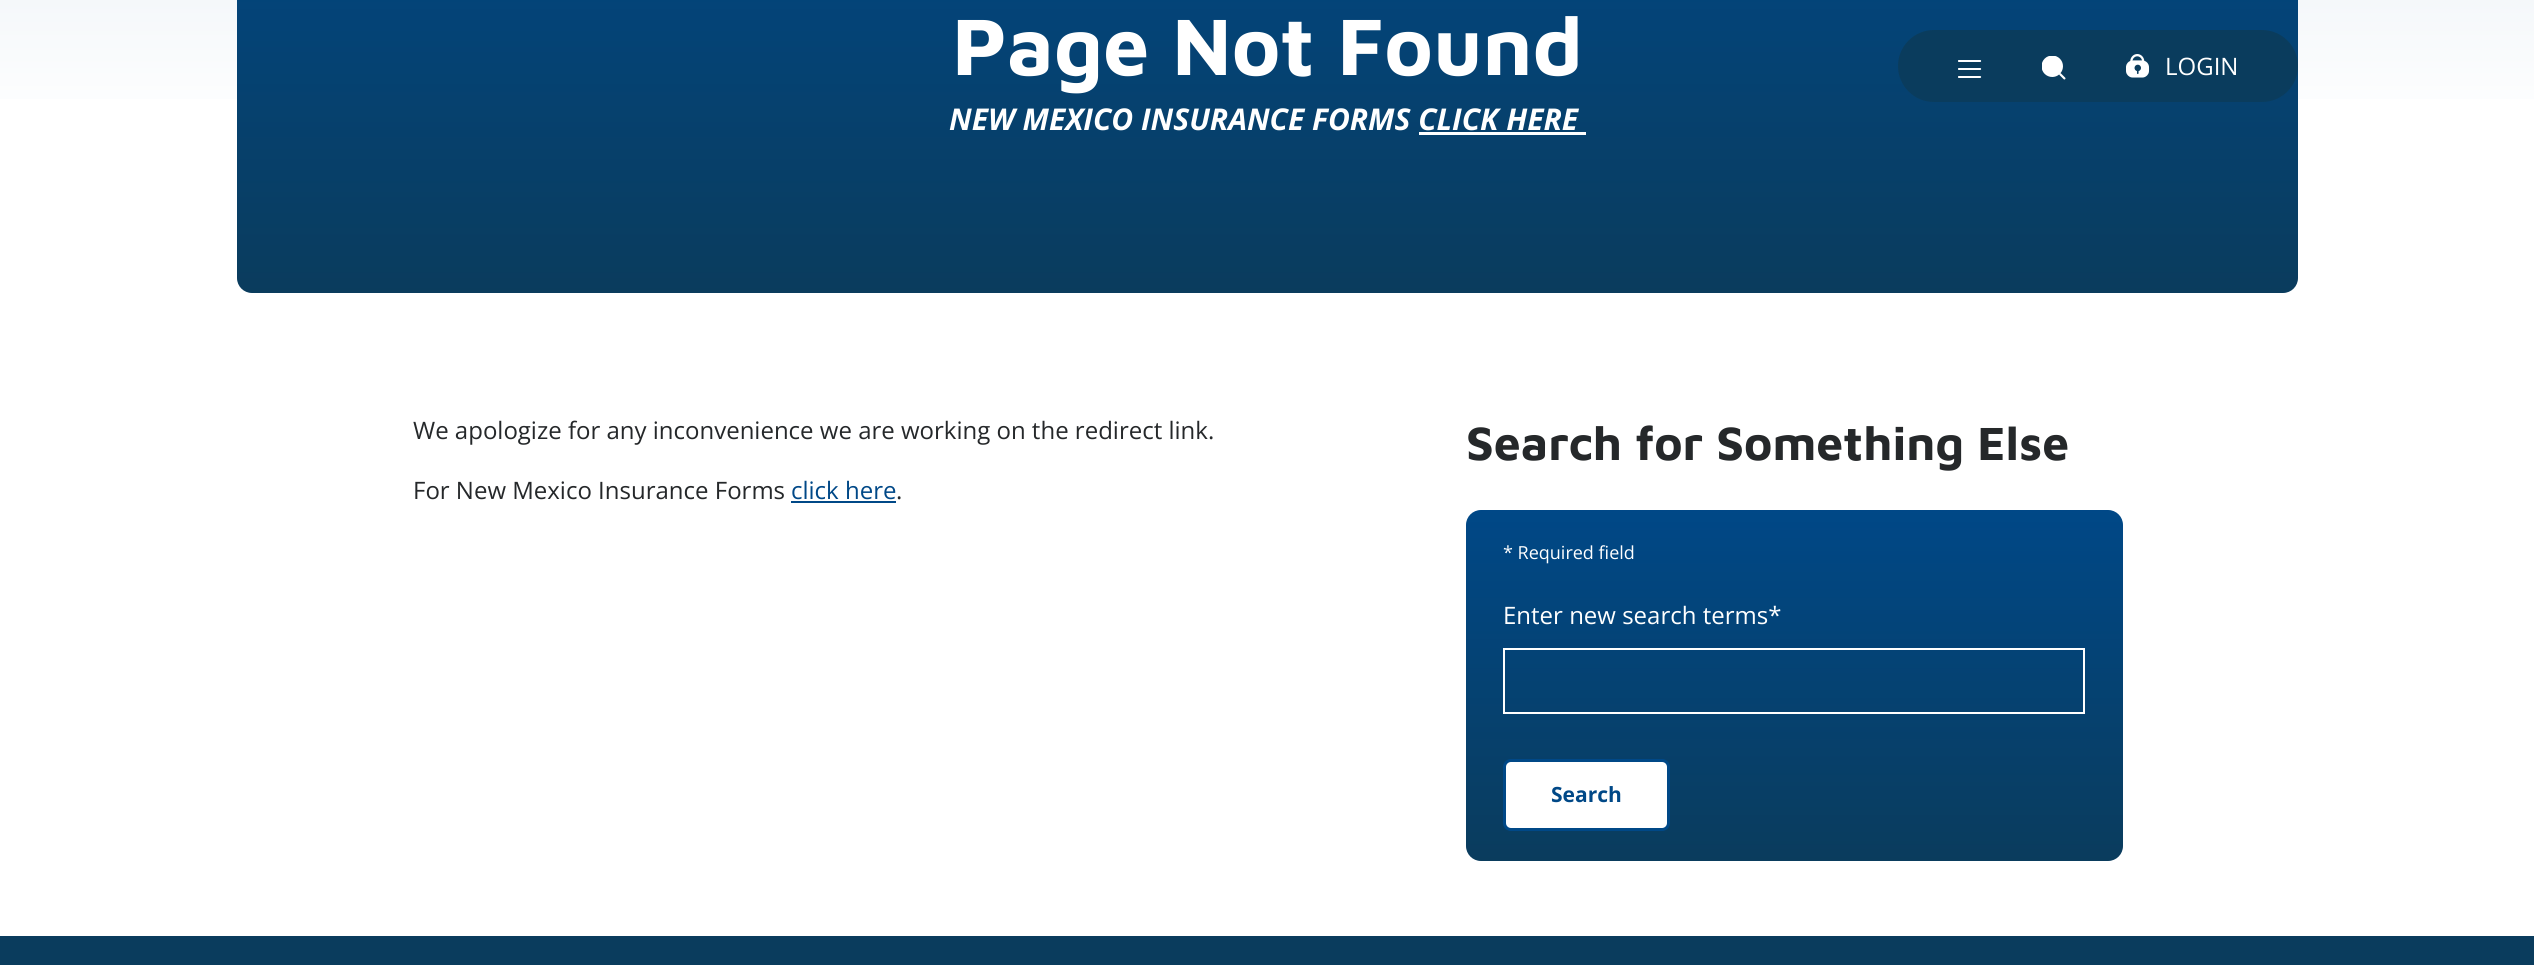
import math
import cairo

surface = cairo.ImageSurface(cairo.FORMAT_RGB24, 2534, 965)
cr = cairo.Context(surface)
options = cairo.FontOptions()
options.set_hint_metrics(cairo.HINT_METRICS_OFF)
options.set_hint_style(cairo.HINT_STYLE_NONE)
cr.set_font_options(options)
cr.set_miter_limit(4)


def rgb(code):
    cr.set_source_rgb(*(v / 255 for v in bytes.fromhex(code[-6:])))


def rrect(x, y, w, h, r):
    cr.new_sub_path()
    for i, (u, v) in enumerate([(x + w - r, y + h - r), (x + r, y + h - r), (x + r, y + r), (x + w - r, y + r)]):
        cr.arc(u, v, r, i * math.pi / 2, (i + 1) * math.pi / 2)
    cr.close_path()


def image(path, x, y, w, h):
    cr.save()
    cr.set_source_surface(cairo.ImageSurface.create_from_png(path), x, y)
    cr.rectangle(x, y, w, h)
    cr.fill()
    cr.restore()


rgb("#ffffff")
cr.paint()
gradient = cairo.LinearGradient(1268, -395, 1268, 131)
gradient.add_color_stop_rgba(0, 0.839, 0.886, 0.925, 1)
gradient.add_color_stop_rgba(1, 1, 1, 1, 1)
cr.set_source(gradient)
cr.rectangle(0, 0, 2534, 99)
cr.fill()
gradient = cairo.LinearGradient(1268, -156, 1268, 293)
gradient.add_color_stop_rgba(0, 0, 0.282, 0.529, 1)
gradient.add_color_stop_rgba(1, 0.039, 0.235, 0.365, 1)
cr.set_source(gradient)
rrect(237, -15, 2061, 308, 15)
cr.fill()
rgb("#ffffff")
cr.rectangle(1419, 132, 167, 3)
cr.fill()
rgb("#004887")
cr.rectangle(791, 501, 105, 2)
cr.fill()
gradient = cairo.LinearGradient(1794, 510, 1794, 861)
gradient.add_color_stop_rgba(0, 0, 0.282, 0.529, 1)
gradient.add_color_stop_rgba(1, 0.039, 0.235, 0.365, 1)
cr.set_source(gradient)
rrect(1466, 510, 657, 351, 15)
cr.fill()
cr.rectangle(1504, 649, 580, 64)
rgb("#ffffff")
cr.stroke()
rrect(1504.5, 760.5, 164, 69, 6.5)
cr.fill_preserve()
rgb("#004887")
cr.set_line_width(3)
cr.stroke()
rgb("#0a3c5d")
rrect(1898, 30, 400, 72, 36)
cr.fill()
image("img/1.png", 1958, 60, 24, 18)
image("img/2.png", 2042, 56, 24, 24)
image("img/3.png", 2126, 54, 24, 24)
cr.rectangle(0, 936, 2534, 29)
cr.fill()
cr.select_font_face("Maven Pro", cairo.FONT_SLANT_NORMAL, cairo.FONT_WEIGHT_BOLD)
cr.set_font_size(82.5)
rgb("#ffffff")
cr.move_to(952, 75)
cr.show_text("Page Not Found")
cr.select_font_face("Open Sans", cairo.FONT_SLANT_ITALIC, cairo.FONT_WEIGHT_BOLD)
cr.set_font_size(30)
cr.move_to(949, 130)
cr.show_text("NEW MEXICO INSURANCE FORMS CLICK HERE")
cr.select_font_face("Open Sans")
cr.set_font_size(24)
rgb("#25282a")
cr.move_to(413, 439)
cr.show_text("We apologize for any inconvenience we are working on the redirect link.")
cr.move_to(413, 499)
cr.show_text("For New Mexico Insurance Forms")
rgb("#004887")
cr.move_to(791, 499)
cr.show_text("click here")
rgb("#25282a")
cr.move_to(896, 499)
cr.show_text(".")
cr.select_font_face("Maven Pro", cairo.FONT_SLANT_NORMAL, cairo.FONT_WEIGHT_BOLD)
cr.set_font_size(48)
cr.move_to(1466, 460)
cr.show_text("Search for Something Else")
cr.select_font_face("Open Sans")
cr.set_font_size(18)
rgb("#ffffff")
cr.move_to(1503, 559)
cr.show_text("* Required field")
cr.set_font_size(24)
cr.move_to(1503, 624)
cr.show_text("Enter new search terms*")
cr.select_font_face("Open Sans", cairo.FONT_SLANT_NORMAL, cairo.FONT_WEIGHT_BOLD)
cr.set_font_size(21)
rgb("#004887")
cr.move_to(1551, 802)
cr.show_text("Search")
cr.select_font_face("Open Sans")
cr.set_font_size(24)
rgb("#ffffff")
cr.move_to(2165, 75)
cr.show_text("LOGIN")
surface.write_to_png("page.png")
